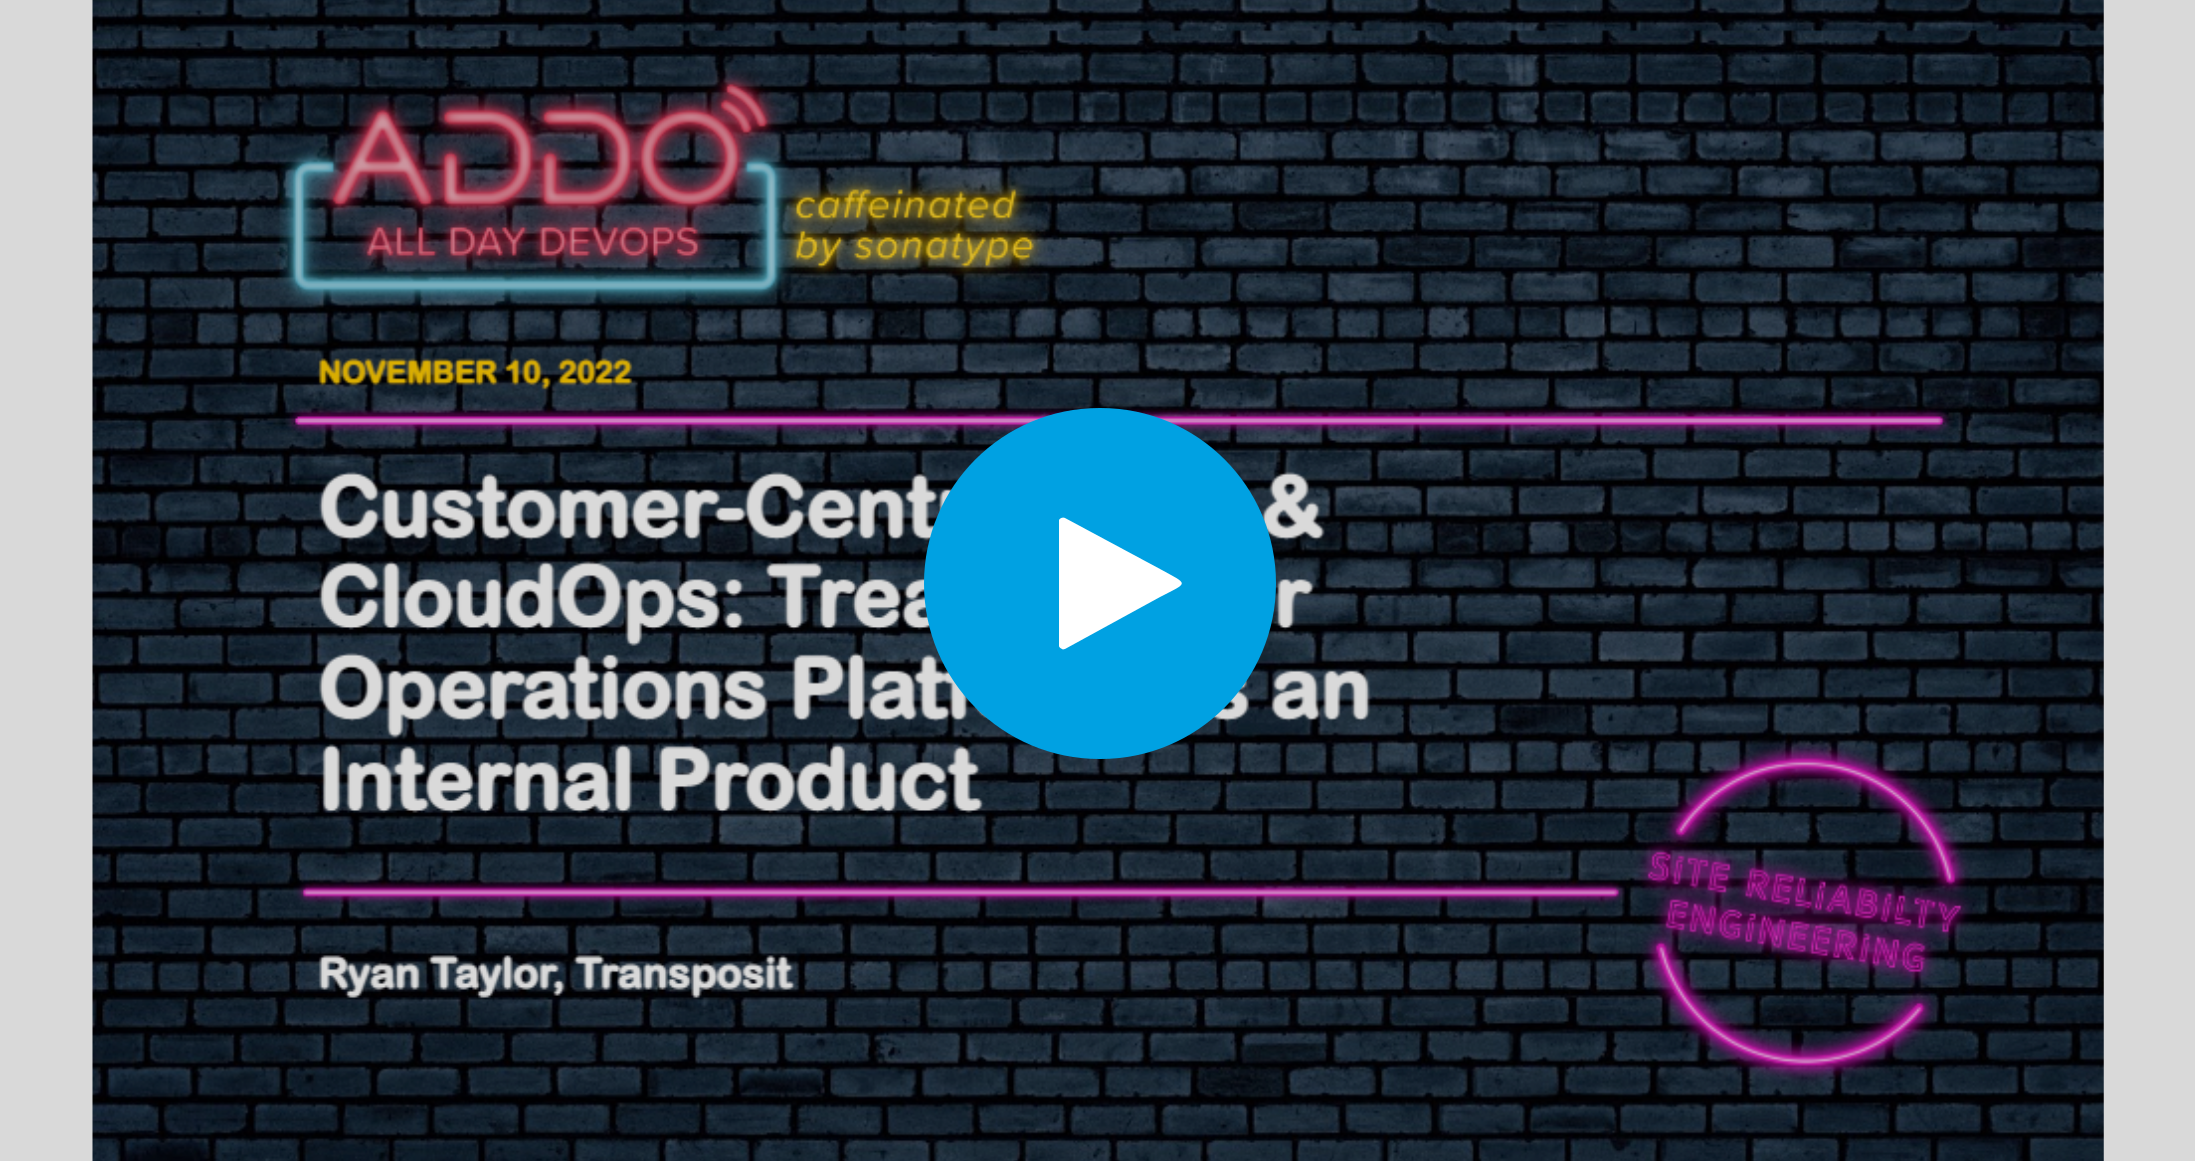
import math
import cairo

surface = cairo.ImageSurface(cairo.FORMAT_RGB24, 2195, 1161)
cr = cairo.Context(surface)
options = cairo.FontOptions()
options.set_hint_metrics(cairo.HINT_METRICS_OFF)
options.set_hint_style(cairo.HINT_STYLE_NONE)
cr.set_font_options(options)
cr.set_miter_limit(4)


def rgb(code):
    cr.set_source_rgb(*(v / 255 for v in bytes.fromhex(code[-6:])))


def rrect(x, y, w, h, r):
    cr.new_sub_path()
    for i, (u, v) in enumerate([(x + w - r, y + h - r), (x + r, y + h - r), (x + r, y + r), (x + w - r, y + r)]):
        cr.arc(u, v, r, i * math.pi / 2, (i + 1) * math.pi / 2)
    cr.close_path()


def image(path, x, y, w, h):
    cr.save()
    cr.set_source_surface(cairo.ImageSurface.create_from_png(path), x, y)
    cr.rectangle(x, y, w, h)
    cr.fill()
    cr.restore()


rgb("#d9d9d9")
cr.paint()
image("img/1.png", 92, 0, 2012, 1161)
rgb("#00a1e2")
rrect(924, 408, 352, 351, 175.5)
cr.fill()
rgb("#ffffff")
cr.new_path()
cr.move_to(1065, 518)
cr.line_to(1160, 569)
cr.curve_to(1189, 585, 1189, 582, 1160, 597)
cr.line_to(1065, 649)
cr.curve_to(1064, 649, 1063, 650, 1062, 649)
cr.curve_to(1060, 648, 1059, 647, 1059, 646)
cr.line_to(1059, 520)
cr.curve_to(1060, 518, 1063, 517, 1065, 518)
cr.close_path()
cr.fill()
surface.write_to_png("page.png")
